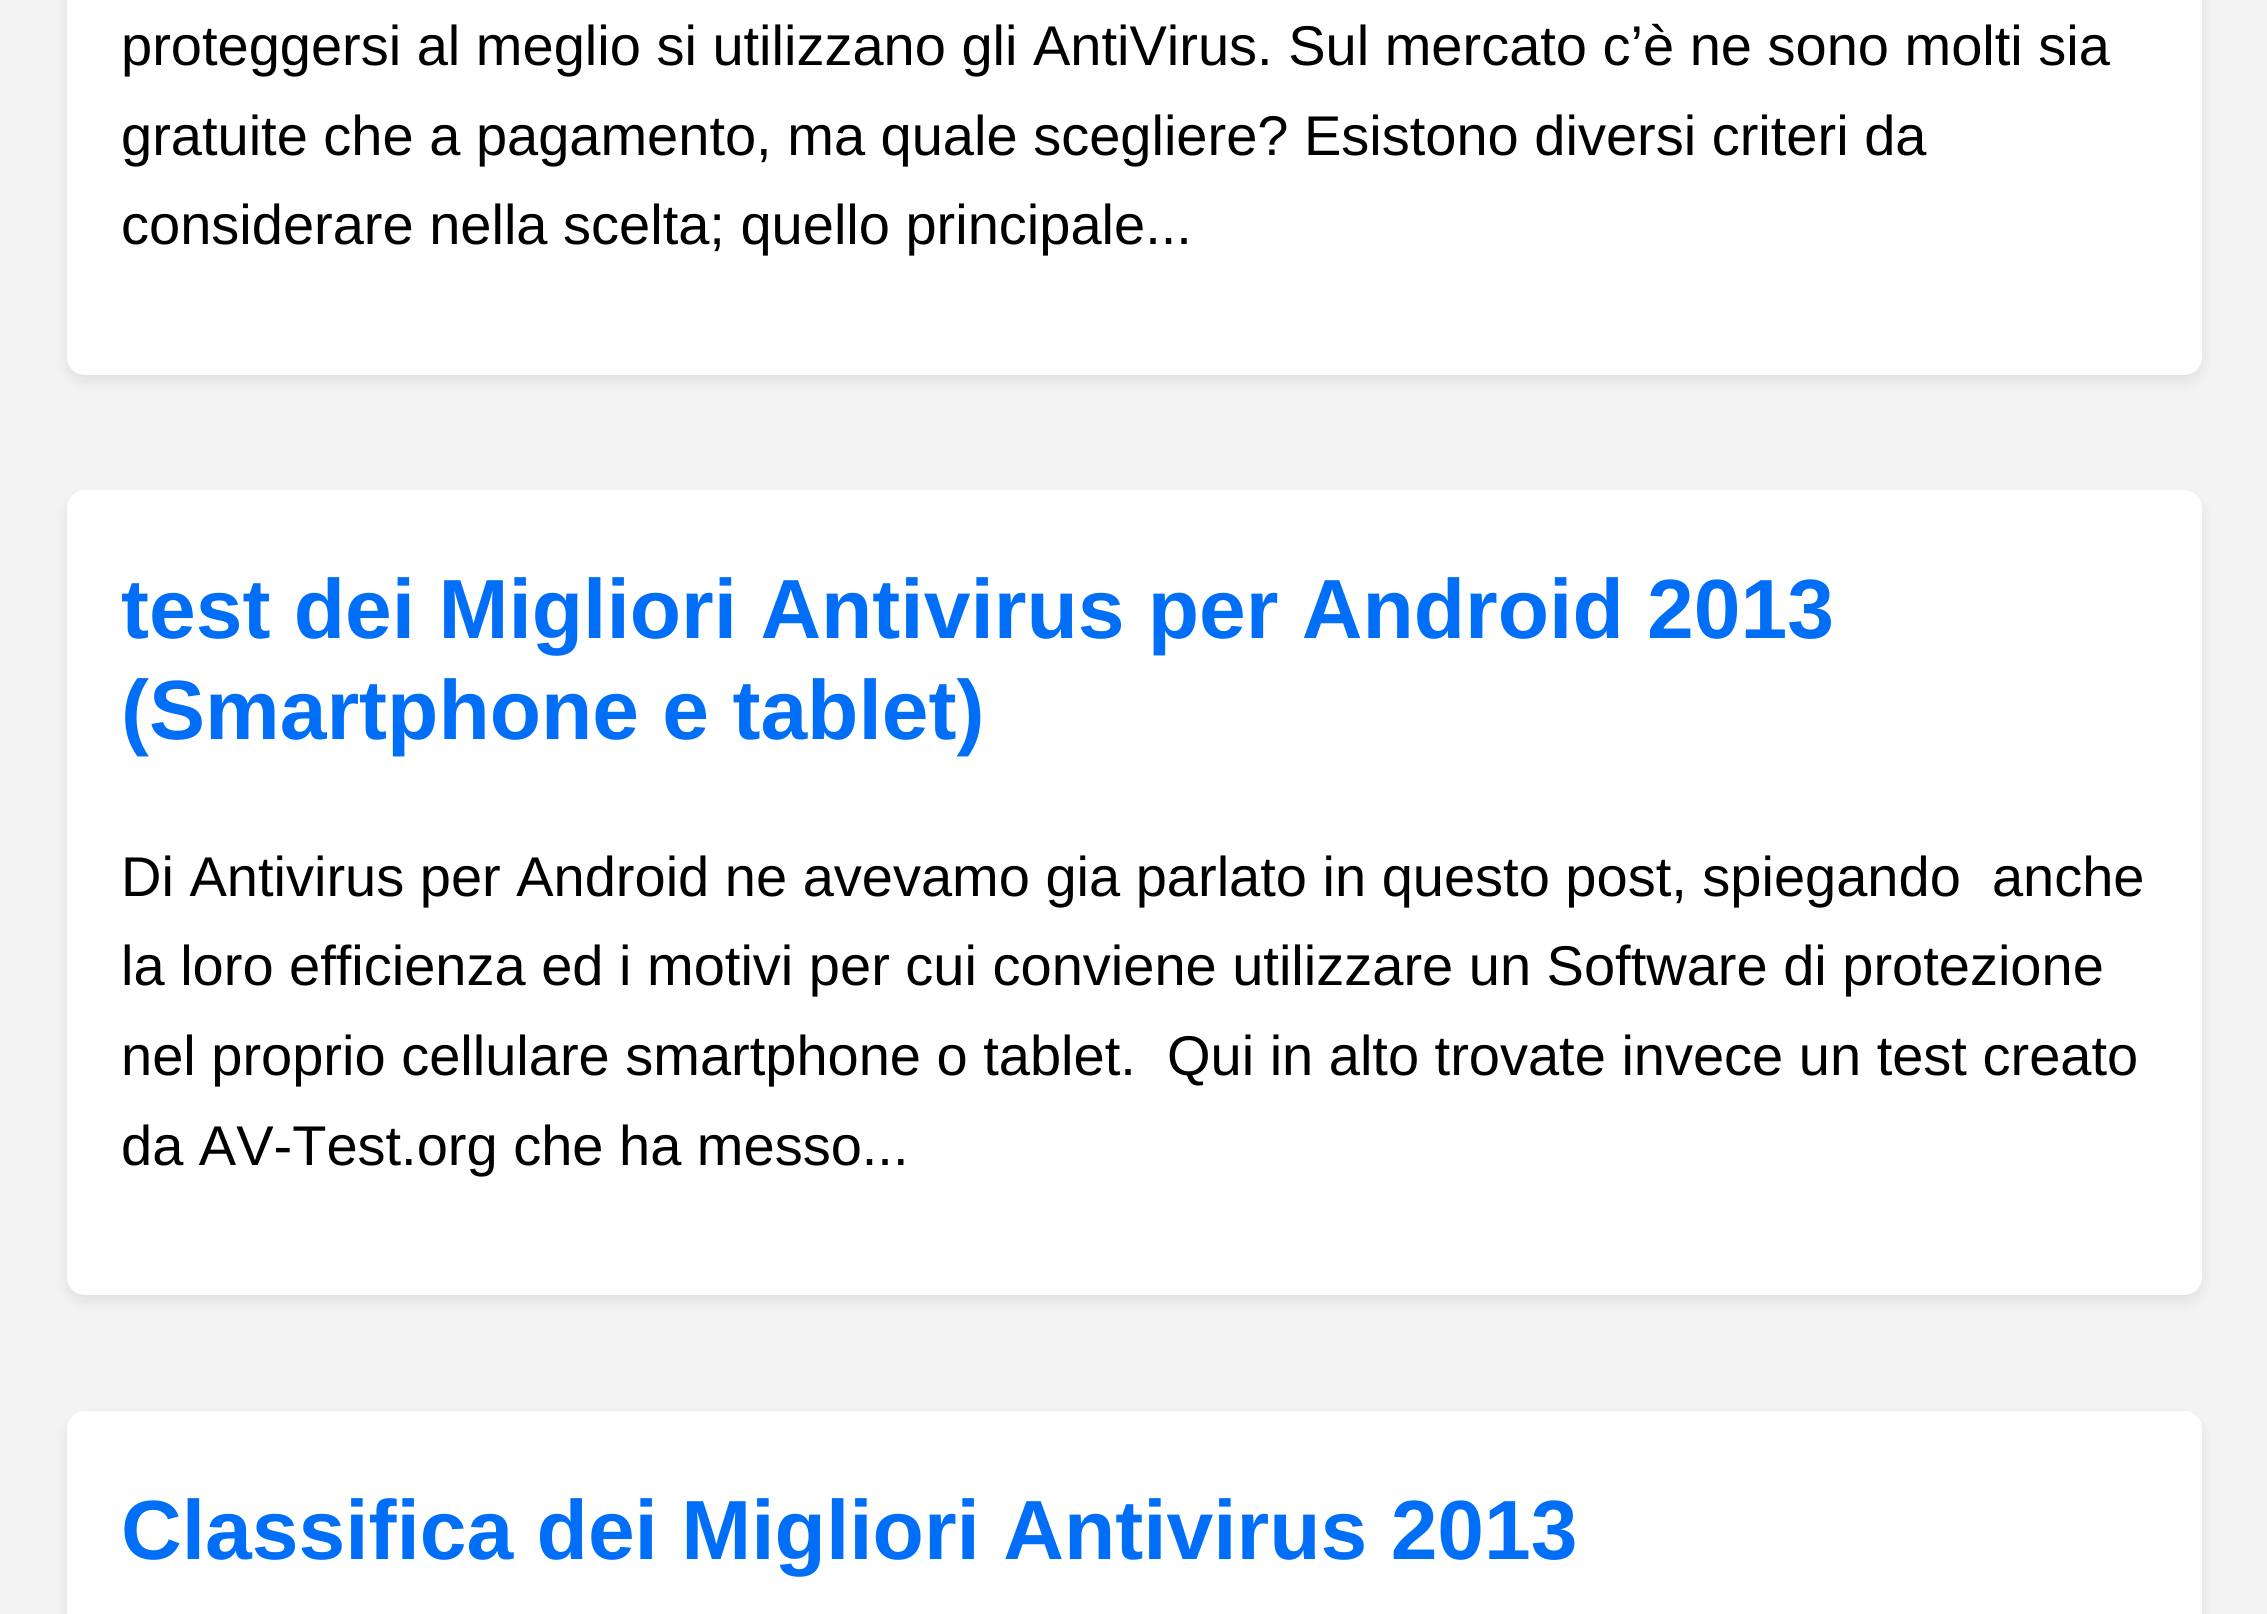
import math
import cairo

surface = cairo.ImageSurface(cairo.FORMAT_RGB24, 2267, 1614)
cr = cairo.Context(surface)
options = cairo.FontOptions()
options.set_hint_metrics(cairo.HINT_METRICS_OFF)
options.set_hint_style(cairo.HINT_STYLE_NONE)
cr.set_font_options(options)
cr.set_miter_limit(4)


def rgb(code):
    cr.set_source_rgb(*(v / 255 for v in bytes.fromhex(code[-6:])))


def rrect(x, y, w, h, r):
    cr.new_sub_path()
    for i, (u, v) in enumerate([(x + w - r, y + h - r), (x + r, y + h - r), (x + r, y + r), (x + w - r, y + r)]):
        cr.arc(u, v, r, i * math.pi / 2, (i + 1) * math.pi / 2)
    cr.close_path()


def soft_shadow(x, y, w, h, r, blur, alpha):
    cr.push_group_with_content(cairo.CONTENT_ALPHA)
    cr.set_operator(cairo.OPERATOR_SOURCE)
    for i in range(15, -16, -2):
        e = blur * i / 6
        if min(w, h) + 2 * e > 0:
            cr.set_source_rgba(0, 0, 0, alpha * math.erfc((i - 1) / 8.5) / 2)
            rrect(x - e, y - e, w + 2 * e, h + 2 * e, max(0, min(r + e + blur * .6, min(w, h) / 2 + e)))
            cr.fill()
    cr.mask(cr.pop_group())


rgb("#f3f3f3")
cr.paint()
rgb("#000000")
soft_shadow(67, -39, 2135, 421, 18, 7, 0.08)
rgb("#ffffff")
rrect(67, -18, 2135, 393, 18)
cr.fill()
rgb("#000000")
soft_shadow(67, 497, 2135, 805, 18, 7, 0.08)
rgb("#ffffff")
rrect(67, 490, 2135, 805, 18)
cr.fill()
rgb("#000000")
soft_shadow(67, 1418, 2135, 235, 18, 7, 0.08)
rgb("#ffffff")
rrect(67, 1411, 2135, 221, 18)
cr.fill()
cr.select_font_face("Liberation Sans")
cr.set_font_size(56)
rgb("#000000")
for x, y, s in [
    (121, 65, "proteggersi al meglio si utilizzano gli AntiVirus. Sul mercato c’è ne sono molti sia"),
    (121, 155, "gratuite che a pagamento, ma quale scegliere? Esistono diversi criteri da"),
    (121, 244, "considerare nella scelta; quello principale..."),
]:
    cr.move_to(x, y)
    cr.show_text(s)
cr.select_font_face("Liberation Sans", cairo.FONT_SLANT_NORMAL, cairo.FONT_WEIGHT_BOLD)
cr.set_font_size(84)
rgb("#006ef7")
cr.move_to(121, 638)
cr.show_text("test dei Migliori Antivirus per Android 2013")
cr.move_to(121, 739)
cr.show_text("(Smartphone e tablet)")
cr.select_font_face("Liberation Sans")
cr.set_font_size(56)
rgb("#000000")
for x, y, s in [
    (121, 896, "Di Antivirus per Android ne avevamo gia parlato in questo post, spiegando  anche"),
    (121, 985, "la loro efficienza ed i motivi per cui conviene utilizzare un Software di protezione"),
    (121, 1075, "nel proprio cellulare smartphone o tablet.  Qui in alto trovate invece un test creato"),
    (121, 1165, "da AV-Test.org che ha messo..."),
]:
    cr.move_to(x, y)
    cr.show_text(s)
cr.select_font_face("Liberation Sans", cairo.FONT_SLANT_NORMAL, cairo.FONT_WEIGHT_BOLD)
cr.set_font_size(84)
rgb("#006ef7")
cr.move_to(121, 1559)
cr.show_text("Classifica dei Migliori Antivirus 2013")
surface.write_to_png("page.png")
